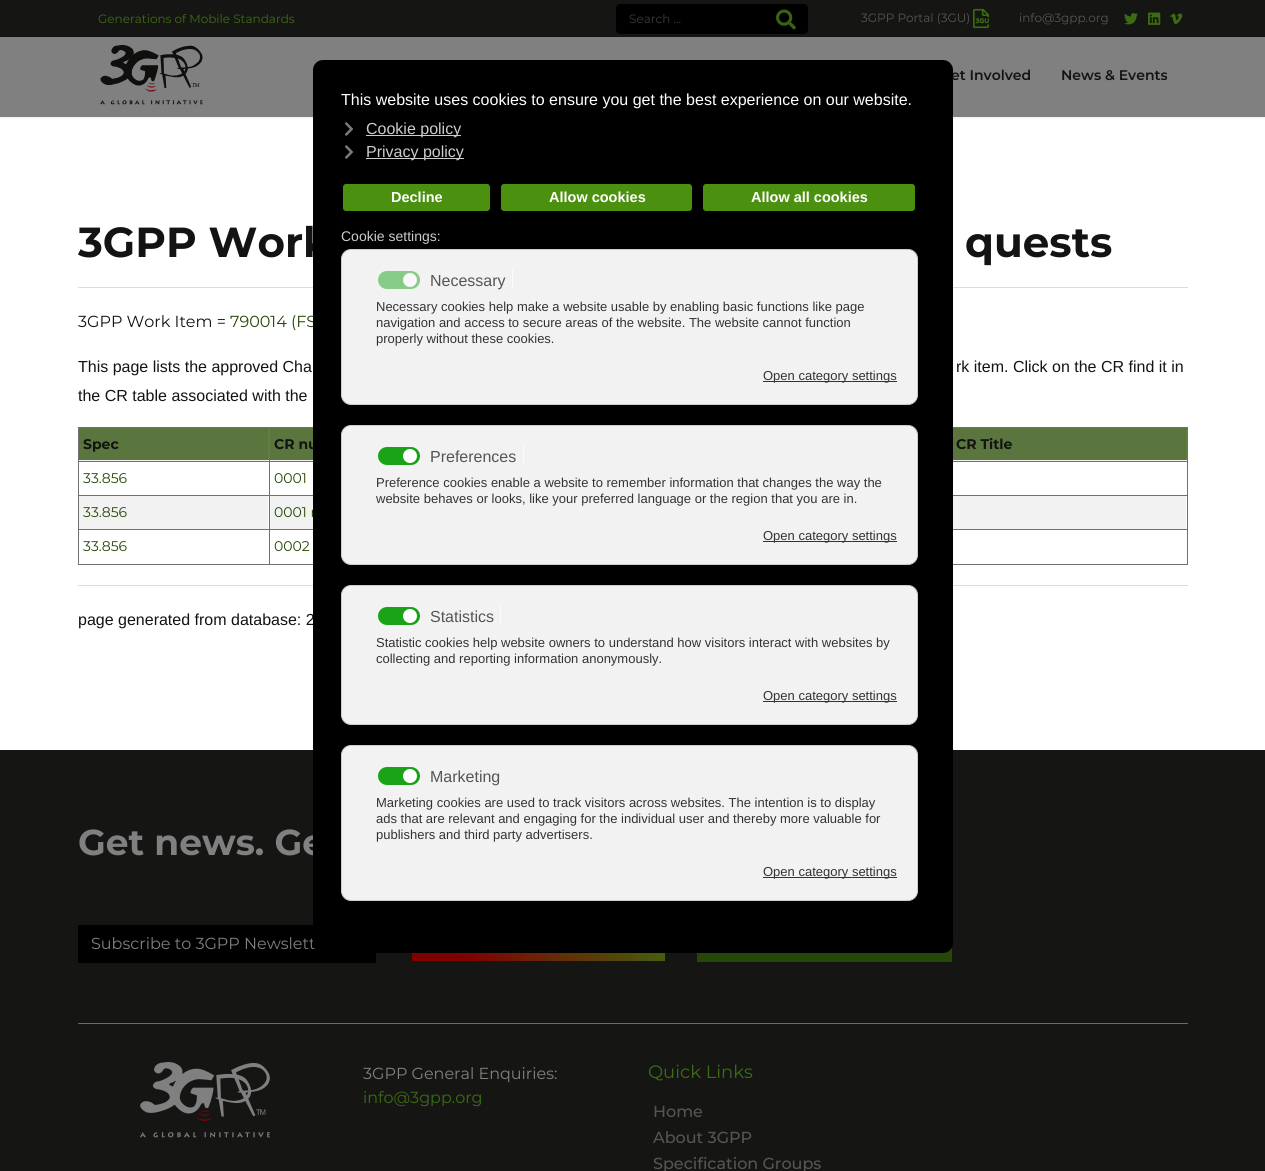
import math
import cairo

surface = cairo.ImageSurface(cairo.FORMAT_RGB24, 1265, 1171)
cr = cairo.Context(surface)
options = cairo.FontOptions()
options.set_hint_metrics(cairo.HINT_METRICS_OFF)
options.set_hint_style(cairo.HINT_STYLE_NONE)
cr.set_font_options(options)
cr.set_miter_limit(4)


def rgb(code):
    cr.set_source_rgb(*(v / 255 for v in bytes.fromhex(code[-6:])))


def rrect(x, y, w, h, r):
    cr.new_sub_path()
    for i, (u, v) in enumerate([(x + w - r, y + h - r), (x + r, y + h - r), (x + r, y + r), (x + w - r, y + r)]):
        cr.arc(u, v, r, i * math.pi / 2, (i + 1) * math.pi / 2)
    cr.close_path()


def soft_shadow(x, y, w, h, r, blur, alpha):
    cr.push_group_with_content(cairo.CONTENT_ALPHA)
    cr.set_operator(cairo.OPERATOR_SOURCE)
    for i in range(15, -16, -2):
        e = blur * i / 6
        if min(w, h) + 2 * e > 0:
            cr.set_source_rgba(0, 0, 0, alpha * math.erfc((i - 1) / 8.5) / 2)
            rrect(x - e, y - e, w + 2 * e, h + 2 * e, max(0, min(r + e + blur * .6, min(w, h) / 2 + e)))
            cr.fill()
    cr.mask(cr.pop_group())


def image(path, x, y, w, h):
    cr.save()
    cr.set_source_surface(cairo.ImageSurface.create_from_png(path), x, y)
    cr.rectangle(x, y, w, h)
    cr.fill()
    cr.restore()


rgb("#ffffff")
cr.paint()
for x, y, w, h, color in [
    (953, 460, 233, 1, "#f2f2f2"),
    (270, 460, 43, 1, "#f2f2f2"),
    (79, 460, 189, 1, "#f2f2f2"),
    (0, 0, 1265, 37, "#151514"),
]:
    rgb(color)
    cr.rectangle(x, y, w, h)
    cr.fill()
rgb("#000000")
rrect(616.5, 4.5, 191, 29, 3.5)
cr.fill_preserve()
cr.set_line_width(1)
cr.stroke()
image("img/1.png", 776, 9, 20, 21)
image("img/2.png", 973, 8, 16, 21)
image("img/3.png", 1124, 13, 14, 12)
image("img/4.png", 1148, 12, 13, 13)
image("img/5.png", 1170, 13, 13, 12)
rgb("#000000")
soft_shadow(0, 37, 1265, 80, 0, 2, 0.1)
rgb("#808080")
cr.rectangle(0, 37, 1265, 80)
cr.fill()
image("img/6.png", 100, 45, 103, 60)
for x, y, w, h, color in [
    (78, 287, 1110, 1, "#dddddd"),
    (268, 428, 919, 32, "#5f7c41"),
    (953, 428, 233, 32, "#5a763e"),
    (270, 428, 43, 32, "#5a763e"),
    (79, 428, 189, 32, "#5a763e"),
    (78, 427, 1110, 1, "#6f7173"),
    (78, 461, 1110, 1, "#6f7173"),
    (78, 495, 1110, 1, "#6f7173"),
    (79, 496, 189, 33, "#f2f2f2"),
    (270, 496, 43, 33, "#f2f2f2"),
    (953, 496, 233, 33, "#f2f2f2"),
    (78, 529, 1110, 1, "#6f7173"),
    (78, 564, 1110, 1, "#6f7173"),
    (78, 427, 1, 138, "#6f7173"),
    (269, 427, 1, 138, "#6f7173"),
    (1187, 427, 1, 138, "#6f7173"),
    (78, 585, 1110, 1, "#dddddd"),
    (0, 750, 1265, 421, "#151514"),
    (78, 925, 298, 38, "#000000"),
]:
    rgb(color)
    cr.rectangle(x, y, w, h)
    cr.fill()
gradient = cairo.LinearGradient(466, 1015, 611, 871)
gradient.add_color_stop_rgba(0.19, 0.502, 0, 0, 1)
gradient.add_color_stop_rgba(1, 0.231, 0.424, 0.063, 1)
cr.set_source(gradient)
cr.rectangle(412, 953, 253, 8)
cr.fill()
rgb("#264807")
cr.rectangle(697, 947, 255, 15)
cr.fill()
rgb("#6a6a6a")
cr.rectangle(78, 1023, 1110, 1)
cr.fill()
image("img/7.png", 140, 1062, 130, 76)
cr.select_font_face("Montserrat")
cr.set_font_size(12)
rgb("#3b6d10")
cr.move_to(98, 23)
cr.show_text("Generations of Mobile Standards")
rgb("#363b3f")
cr.move_to(629, 23)
cr.show_text("Search ...")
rgb("#555555")
cr.move_to(861, 22)
cr.show_text("3GPP Portal (3GU)")
cr.move_to(1019, 22)
cr.show_text("info@3gpp.org")
cr.select_font_face("Montserrat SemiBold")
cr.set_font_size(14)
rgb("#131313")
cr.move_to(951, 80)
cr.show_text("et Involved")
cr.move_to(1061, 80)
cr.show_text("News & Events")
cr.select_font_face("Montserrat", cairo.FONT_SLANT_NORMAL, cairo.FONT_WEIGHT_BOLD)
cr.set_font_size(42)
cr.move_to(78, 257)
cr.show_text("3GPP Work")
cr.move_to(965, 257)
cr.show_text("quests")
cr.select_font_face("Montserrat")
cr.set_font_size(16)
cr.move_to(78, 327)
cr.show_text("3GPP Work Item =")
rgb("#264807")
cr.move_to(230, 327)
cr.show_text("790014 (FS")
cr.select_font_face("Liberation Sans")
rgb("#131313")
for x, y, s in [
    (78, 372, "This page lists the approved Cha"),
    (956, 372, "rk item. Click on the CR find it in"),
    (78, 401, "the CR table associated with the"),
]:
    cr.move_to(x, y)
    cr.show_text(s)
cr.select_font_face("Montserrat", cairo.FONT_SLANT_NORMAL, cairo.FONT_WEIGHT_BOLD)
cr.set_font_size(14)
for x, y, s in [
    (83, 449, "Spec"),
    (274, 449, "CR nu"),
    (956, 449, "CR Title"),
]:
    cr.move_to(x, y)
    cr.show_text(s)
cr.select_font_face("Montserrat")
rgb("#264807")
for x, y, s in [
    (83, 483, "33.856"),
    (274, 483, "0001"),
    (83, 517, "33.856"),
    (274, 517, "0001 r"),
    (83, 551, "33.856"),
    (274, 551, "0002"),
]:
    cr.move_to(x, y)
    cr.show_text(s)
cr.select_font_face("Liberation Sans")
cr.set_font_size(16)
rgb("#131313")
cr.move_to(78, 625)
cr.show_text("page generated from database: 2")
cr.select_font_face("Montserrat", cairo.FONT_SLANT_NORMAL, cairo.FONT_WEIGHT_BOLD)
cr.set_font_size(36)
rgb("#808080")
cr.move_to(78, 855)
cr.show_text("Get news. Ge")
cr.select_font_face("Montserrat")
cr.set_font_size(16)
cr.move_to(91, 949)
cr.show_text("Subscribe to 3GPP Newslett")
cr.move_to(363, 1079)
cr.show_text("3GPP General Enquiries:")
rgb("#3b6d10")
cr.move_to(363, 1103)
cr.show_text("info@3gpp.org")
cr.set_font_size(18)
cr.move_to(648, 1078)
cr.show_text("Quick Links")
cr.select_font_face("Montserrat Medium")
cr.set_font_size(16)
rgb("#555555")
for x, y, s in [
    (653, 1117, "Home"),
    (653, 1143, "About 3GPP"),
    (653, 1169, "Specification Groups"),
]:
    cr.move_to(x, y)
    cr.show_text(s)
rgb("#000000")
rrect(313, 60, 640, 893, 10)
cr.fill()
cr.select_font_face("Liberation Sans")
rgb("#ffffff")
cr.move_to(341, 105)
cr.show_text("This website uses cookies to ensure you get the best experience on our website.")
image("img/8.png", 344, 122, 9, 14)
rgb("#cccccc")
cr.rectangle(366, 135, 95, 1)
cr.fill()
cr.move_to(366, 134)
cr.show_text("Cookie policy")
image("img/8.png", 344, 145, 9, 14)
cr.rectangle(366, 158, 98, 1)
cr.fill()
cr.move_to(366, 157)
cr.show_text("Privacy policy")
rgb("#4b900e")
rrect(342, 183, 149, 29, 4)
cr.fill_preserve()
rgb("#000000")
cr.set_line_width(2)
cr.stroke()
cr.select_font_face("Liberation Sans", cairo.FONT_SLANT_NORMAL, cairo.FONT_WEIGHT_BOLD)
cr.set_font_size(14.5)
rgb("#ffffff")
cr.move_to(391, 202)
cr.show_text("Decline")
rgb("#4b900e")
rrect(500, 183, 193, 29, 4)
cr.fill_preserve()
rgb("#000000")
cr.stroke()
rgb("#ffffff")
cr.move_to(549, 202)
cr.show_text("Allow cookies")
rgb("#4b900e")
rrect(702, 183, 214, 29, 4)
cr.fill_preserve()
rgb("#000000")
cr.stroke()
rgb("#ffffff")
cr.move_to(751, 202)
cr.show_text("Allow all cookies")
cr.select_font_face("Liberation Sans")
cr.set_font_size(14)
rgb("#cccccc")
cr.move_to(341, 241)
cr.show_text("Cookie settings:")
rgb("#f2f2f2")
rrect(341.5, 249.5, 576, 155, 9.5)
cr.fill_preserve()
rgb("#cccccc")
cr.set_line_width(1)
cr.stroke()
rgb("#86cb86")
rrect(378, 271, 42, 18, 9)
cr.fill()
rgb("#f9f9f9")
cr.arc(410, 280, 7, 0, 2 * math.pi)
cr.fill()
rgb("#fcfcfc")
cr.rectangle(512, 270, 1, 19)
cr.fill()
cr.set_font_size(16)
rgb("#555555")
cr.move_to(430, 286)
cr.show_text("Necessary")
cr.set_font_size(13)
rgb("#333333")
for x, y, s in [
    (376, 311, "Necessary cookies help make a website usable by enabling basic functions like page"),
    (376, 327, "navigation and access to secure areas of the website. The website cannot function"),
    (376, 343, "properly without these cookies."),
]:
    cr.move_to(x, y)
    cr.show_text(s)
cr.rectangle(763, 381, 134, 1)
cr.fill()
cr.move_to(763, 380)
cr.show_text("Open category settings")
rgb("#f2f2f2")
rrect(341.5, 425.5, 576, 139, 9.5)
cr.fill_preserve()
rgb("#cccccc")
cr.stroke()
rgb("#19a319")
rrect(378, 447, 42, 18, 9)
cr.fill()
rgb("#ffffff")
cr.arc(410, 456, 7, 0, 2 * math.pi)
cr.fill()
rgb("#fcfcfc")
cr.rectangle(523, 446, 1, 19)
cr.fill()
cr.set_font_size(16)
rgb("#555555")
cr.move_to(430, 462)
cr.show_text("Preferences")
cr.set_font_size(13)
rgb("#333333")
cr.move_to(376, 487)
cr.show_text("Preference cookies enable a website to remember information that changes the way the")
cr.move_to(376, 503)
cr.show_text("website behaves or looks, like your preferred language or the region that you are in.")
cr.rectangle(763, 541, 134, 1)
cr.fill()
cr.move_to(763, 540)
cr.show_text("Open category settings")
rgb("#f2f2f2")
rrect(341.5, 585.5, 576, 139, 9.5)
cr.fill_preserve()
rgb("#cccccc")
cr.stroke()
rgb("#19a319")
rrect(378, 607, 42, 18, 9)
cr.fill()
rgb("#ffffff")
cr.arc(410, 616, 7, 0, 2 * math.pi)
cr.fill()
rgb("#fcfcfc")
cr.rectangle(500, 606, 1, 19)
cr.fill()
cr.set_font_size(16)
rgb("#555555")
cr.move_to(430, 622)
cr.show_text("Statistics")
cr.set_font_size(13)
rgb("#333333")
cr.move_to(376, 647)
cr.show_text("Statistic cookies help website owners to understand how visitors interact with websites by")
cr.move_to(376, 663)
cr.show_text("collecting and reporting information anonymously.")
cr.rectangle(763, 701, 134, 1)
cr.fill()
cr.move_to(763, 700)
cr.show_text("Open category settings")
rgb("#f2f2f2")
rrect(341.5, 745.5, 576, 155, 9.5)
cr.fill_preserve()
rgb("#cccccc")
cr.stroke()
rgb("#19a319")
rrect(378, 767, 42, 18, 9)
cr.fill()
rgb("#ffffff")
cr.arc(410, 776, 7, 0, 2 * math.pi)
cr.fill()
cr.set_font_size(16)
rgb("#555555")
cr.move_to(430, 782)
cr.show_text("Marketing")
cr.set_font_size(13)
rgb("#333333")
for x, y, s in [
    (376, 807, "Marketing cookies are used to track visitors across websites. The intention is to display"),
    (376, 823, "ads that are relevant and engaging for the individual user and thereby more valuable for"),
    (376, 839, "publishers and third party advertisers."),
]:
    cr.move_to(x, y)
    cr.show_text(s)
cr.rectangle(763, 877, 134, 1)
cr.fill()
cr.move_to(763, 876)
cr.show_text("Open category settings")
surface.write_to_png("page.png")
